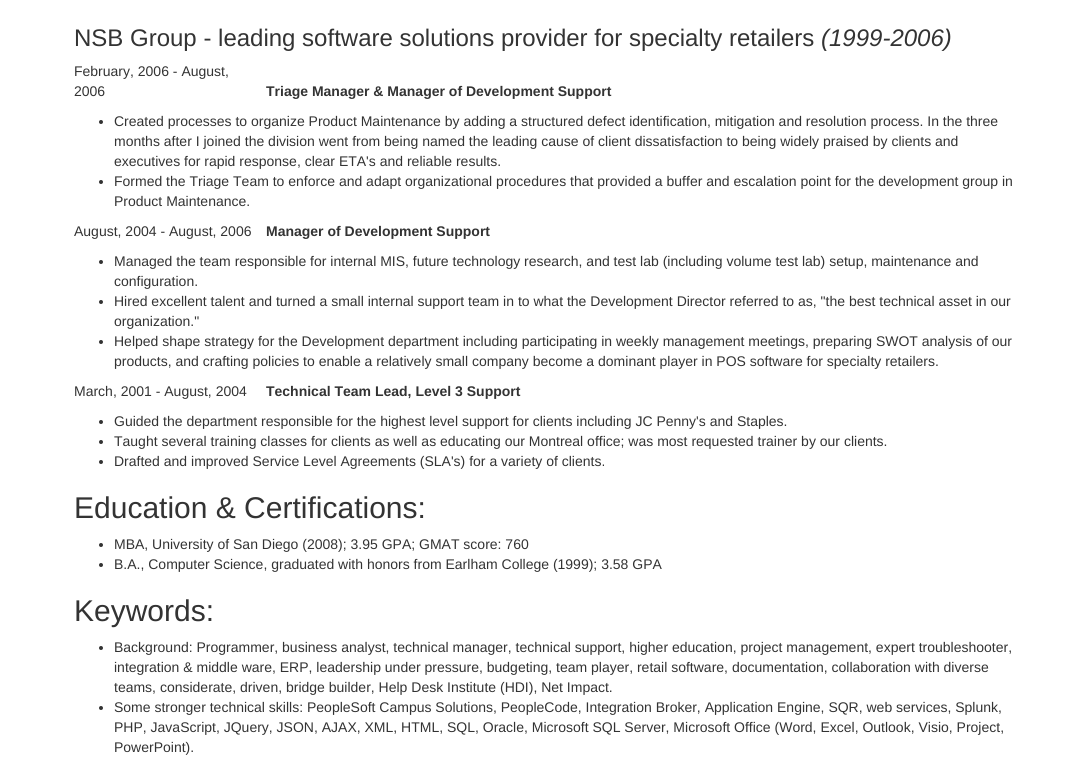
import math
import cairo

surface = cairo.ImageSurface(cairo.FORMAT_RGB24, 1088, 767)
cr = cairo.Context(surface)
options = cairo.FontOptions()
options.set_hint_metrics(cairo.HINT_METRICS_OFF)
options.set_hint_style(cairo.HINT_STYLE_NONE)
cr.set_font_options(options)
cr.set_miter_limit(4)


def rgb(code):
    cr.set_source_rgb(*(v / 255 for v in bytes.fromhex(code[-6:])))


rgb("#ffffff")
cr.paint()
rgb("#333333")
cr.arc(101, 122, 2, 0, 2 * math.pi)
cr.fill()
cr.arc(101, 182, 2, 0, 2 * math.pi)
cr.fill()
cr.arc(101, 262, 2, 0, 2 * math.pi)
cr.fill()
cr.arc(101, 302, 2, 0, 2 * math.pi)
cr.fill()
cr.arc(101, 342, 2, 0, 2 * math.pi)
cr.fill()
cr.arc(101, 422, 2, 0, 2 * math.pi)
cr.fill()
cr.arc(101, 442, 2, 0, 2 * math.pi)
cr.fill()
cr.arc(101, 462, 2, 0, 2 * math.pi)
cr.fill()
cr.arc(101, 545, 2, 0, 2 * math.pi)
cr.fill()
cr.arc(101, 565, 2, 0, 2 * math.pi)
cr.fill()
cr.arc(101, 648, 2, 0, 2 * math.pi)
cr.fill()
cr.arc(101, 708, 2, 0, 2 * math.pi)
cr.fill()
cr.select_font_face("Liberation Sans")
cr.set_font_size(24)
cr.move_to(74, 46)
cr.show_text("NSB Group - leading software solutions provider for specialty retailers")
cr.select_font_face("Liberation Sans", cairo.FONT_SLANT_ITALIC)
cr.move_to(821, 46)
cr.show_text("(1999-2006)")
cr.select_font_face("Liberation Sans")
cr.set_font_size(14)
cr.move_to(74, 76)
cr.show_text("February, 2006 - August,")
cr.move_to(74, 96)
cr.show_text("2006")
cr.select_font_face("Liberation Sans", cairo.FONT_SLANT_NORMAL, cairo.FONT_WEIGHT_BOLD)
cr.move_to(266, 96)
cr.show_text("Triage Manager & Manager of Development Support")
cr.select_font_face("Liberation Sans")
for x, y, s in [
    (114, 126, "Created processes to organize Product Maintenance by adding a structured defect identification, mitigation and resolution process. In the three"),
    (114, 146, "months after I joined the division went from being named the leading cause of client dissatisfaction to being widely praised by clients and"),
    (114, 166, "executives for rapid response, clear ETA's and reliable results."),
    (114, 186, "Formed the Triage Team to enforce and adapt organizational procedures that provided a buffer and escalation point for the development group in"),
    (114, 206, "Product Maintenance."),
    (74, 236, "August, 2004 - August, 2006"),
]:
    cr.move_to(x, y)
    cr.show_text(s)
cr.select_font_face("Liberation Sans", cairo.FONT_SLANT_NORMAL, cairo.FONT_WEIGHT_BOLD)
cr.move_to(266, 236)
cr.show_text("Manager of Development Support")
cr.select_font_face("Liberation Sans")
for x, y, s in [
    (114, 266, "Managed the team responsible for internal MIS, future technology research, and test lab (including volume test lab) setup, maintenance and"),
    (114, 286, "configuration."),
    (114, 306, "Hired excellent talent and turned a small internal support team in to what the Development Director referred to as, \"the best technical asset in our"),
    (114, 326, "organization.\""),
    (114, 346, "Helped shape strategy for the Development department including participating in weekly management meetings, preparing SWOT analysis of our"),
    (114, 366, "products, and crafting policies to enable a relatively small company become a dominant player in POS software for specialty retailers."),
    (74, 396, "March, 2001 - August, 2004"),
]:
    cr.move_to(x, y)
    cr.show_text(s)
cr.select_font_face("Liberation Sans", cairo.FONT_SLANT_NORMAL, cairo.FONT_WEIGHT_BOLD)
cr.move_to(266, 396)
cr.show_text("Technical Team Lead, Level 3 Support")
cr.select_font_face("Liberation Sans")
for x, y, s in [
    (114, 426, "Guided the department responsible for the highest level support for clients including JC Penny's and Staples."),
    (114, 446, "Taught several training classes for clients as well as educating our Montreal office; was most requested trainer by our clients."),
    (114, 466, "Drafted and improved Service Level Agreements (SLA's) for a variety of clients."),
]:
    cr.move_to(x, y)
    cr.show_text(s)
cr.set_font_size(30)
cr.move_to(74, 518)
cr.show_text("Education & Certifications:")
cr.set_font_size(14)
cr.move_to(114, 549)
cr.show_text("MBA, University of San Diego (2008); 3.95 GPA; GMAT score: 760")
cr.move_to(114, 569)
cr.show_text("B.A., Computer Science, graduated with honors from Earlham College (1999); 3.58 GPA")
cr.set_font_size(30)
cr.move_to(74, 621)
cr.show_text("Keywords:")
cr.set_font_size(14)
for x, y, s in [
    (114, 652, "Background: Programmer, business analyst, technical manager, technical support, higher education, project management, expert troubleshooter,"),
    (114, 672, "integration & middle ware, ERP, leadership under pressure, budgeting, team player, retail software, documentation, collaboration with diverse"),
    (114, 692, "teams, considerate, driven, bridge builder, Help Desk Institute (HDI), Net Impact."),
    (114, 712, "Some stronger technical skills: PeopleSoft Campus Solutions, PeopleCode, Integration Broker, Application Engine, SQR, web services, Splunk,"),
    (114, 732, "PHP, JavaScript, JQuery, JSON, AJAX, XML, HTML, SQL, Oracle, Microsoft SQL Server, Microsoft Office (Word, Excel, Outlook, Visio, Project,"),
    (114, 752, "PowerPoint)."),
]:
    cr.move_to(x, y)
    cr.show_text(s)
surface.write_to_png("page.png")
